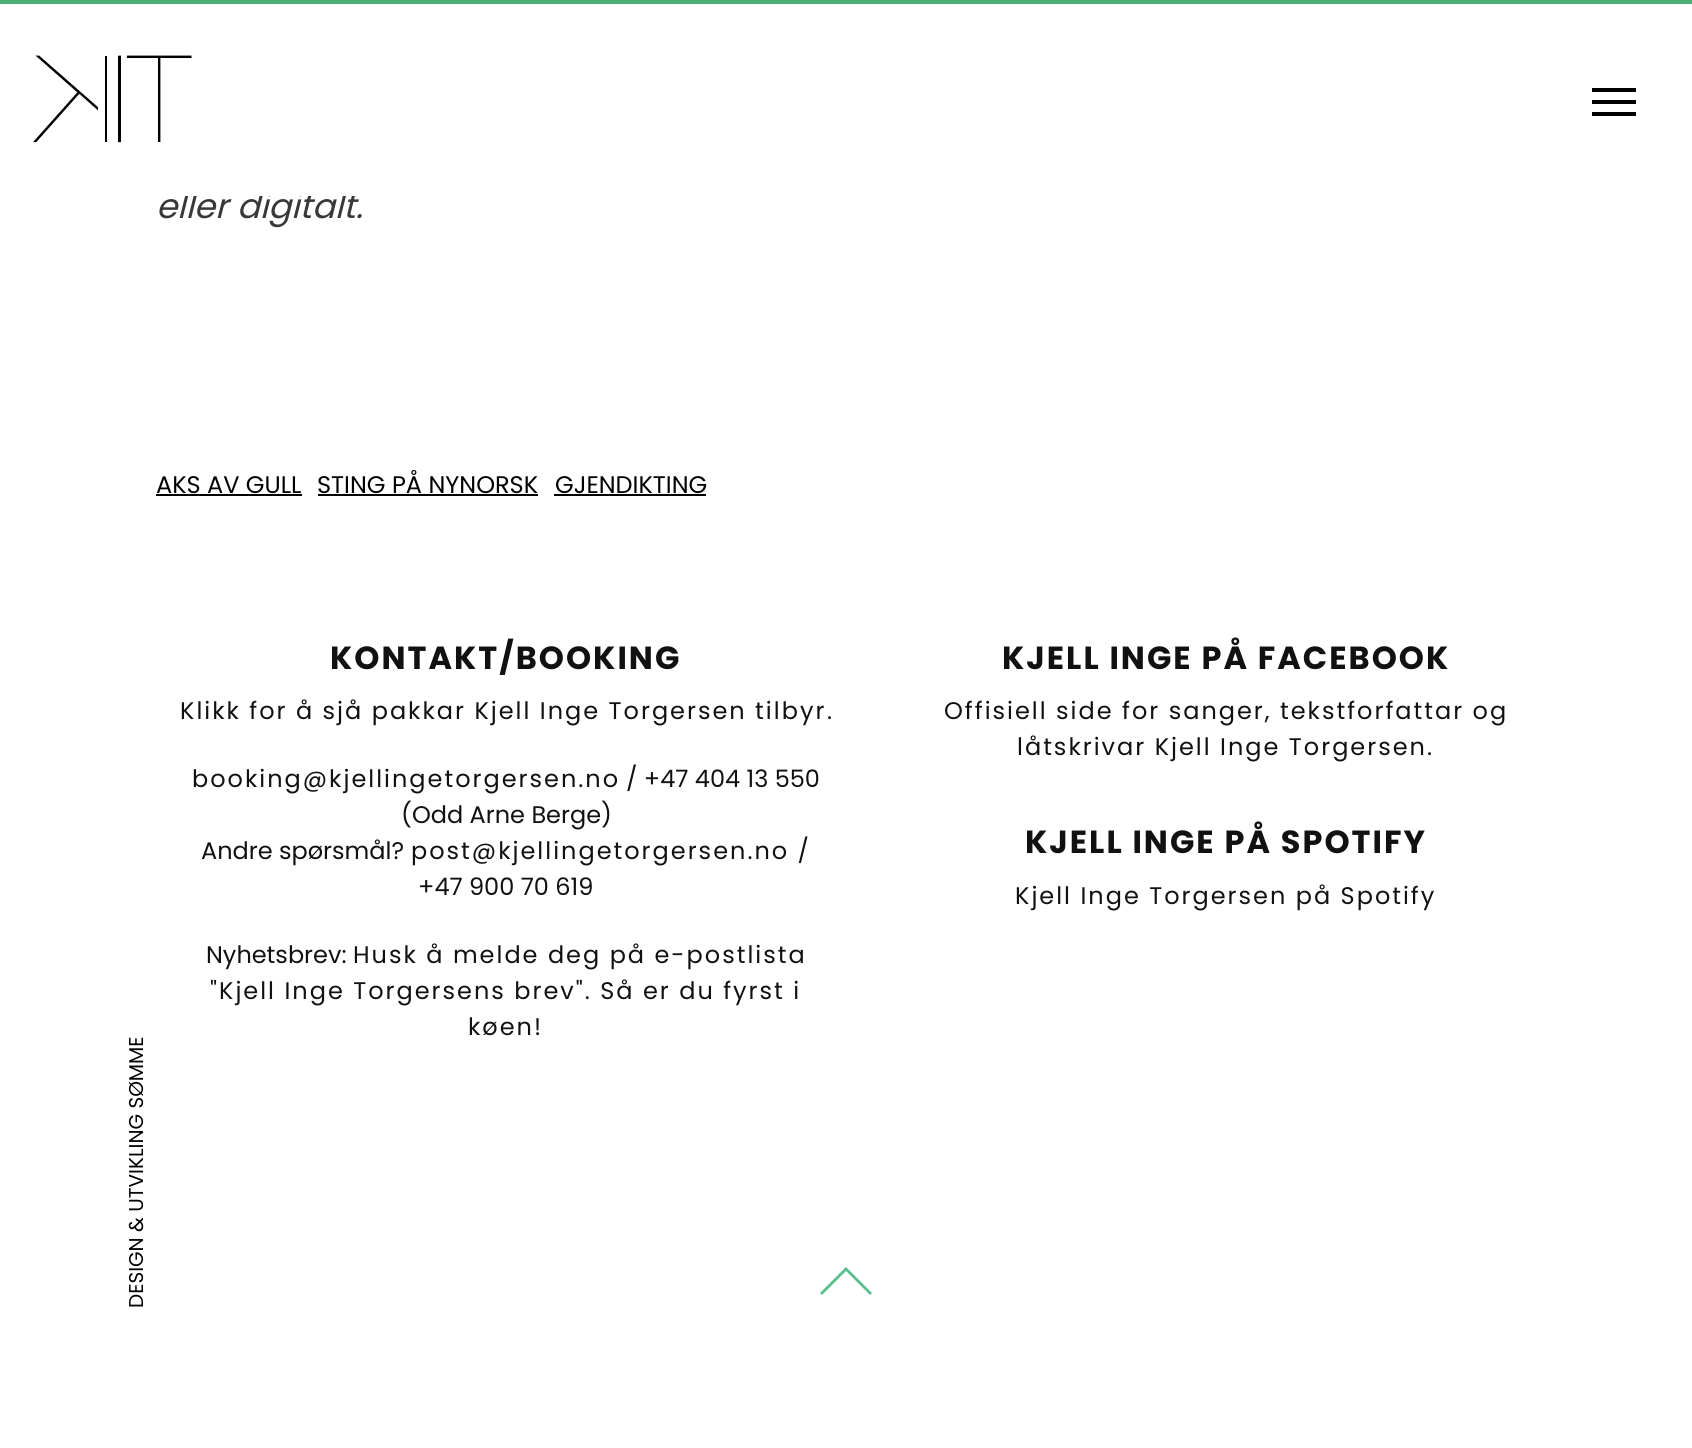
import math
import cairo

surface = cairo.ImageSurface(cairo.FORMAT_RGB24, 1692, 1448)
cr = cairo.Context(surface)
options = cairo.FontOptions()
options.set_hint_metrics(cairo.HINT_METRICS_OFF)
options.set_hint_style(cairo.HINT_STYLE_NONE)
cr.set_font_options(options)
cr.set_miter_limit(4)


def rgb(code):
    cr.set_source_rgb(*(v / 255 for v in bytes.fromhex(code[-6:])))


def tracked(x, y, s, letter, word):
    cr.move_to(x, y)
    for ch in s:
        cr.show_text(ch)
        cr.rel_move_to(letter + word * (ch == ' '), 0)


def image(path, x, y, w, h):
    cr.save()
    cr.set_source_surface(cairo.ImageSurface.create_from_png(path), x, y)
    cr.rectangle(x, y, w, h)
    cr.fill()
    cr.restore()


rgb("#ffffff")
cr.paint()
rgb("#4daf75")
cr.rectangle(0, 0, 1692, 4)
cr.fill()
image("img/1.png", 33, 55, 159, 88)
for x, y, w, h, color in [
    (1592, 88, 44, 4, "#000000"),
    (1592, 100, 44, 4, "#000000"),
    (1592, 112, 44, 4, "#000000"),
    (156, 494, 146, 2, "#000000"),
    (318, 494, 220, 2, "#000000"),
    (554, 494, 152, 2, "#000000"),
]:
    rgb(color)
    cr.rectangle(x, y, w, h)
    cr.fill()
rgb("#59bf8e")
cr.new_path()
cr.move_to(872, 1293)
cr.line_to(870, 1295)
cr.line_to(846, 1271)
cr.line_to(822, 1295)
cr.line_to(820, 1293)
cr.line_to(846, 1267)
cr.close_path()
cr.fill()
cr.select_font_face("Poppins", cairo.FONT_SLANT_ITALIC)
cr.set_font_size(34)
rgb("#383837")
cr.move_to(156, 218)
cr.show_text("eller digitalt.")
rgb("#ffffff")
cr.rectangle(185, 192, 170, 4)
cr.fill()
cr.select_font_face("Poppins")
cr.set_font_size(24)
rgb("#000000")
for x, y, s in [
    (156, 493, "AKS AV GULL"),
    (317, 493, "STING PÅ NYNORSK"),
    (555, 493, "GJENDIKTING"),
]:
    cr.move_to(x, y)
    cr.show_text(s)
cr.select_font_face("Poppins", cairo.FONT_SLANT_NORMAL, cairo.FONT_WEIGHT_BOLD)
cr.set_font_size(32)
rgb("#111111")
tracked(330, 669, "KONTAKT/BOOKING", 2, 0)
cr.select_font_face("Poppins")
cr.set_font_size(24)
tracked(180, 719, "Klikk for å sjå pakkar Kjell Inge Torgersen tilbyr", 2, 0)
cr.move_to(827, 719)
cr.show_text(".")
tracked(192, 787, "booking@kjellingetorgersen.no", 2, 0)
for x, y, s in [
    (626, 787, "/ +47 404 13 550"),
    (401, 823, "(Odd Arne Berge)"),
    (201, 859, "Andre spørsmål?"),
]:
    cr.move_to(x, y)
    cr.show_text(s)
tracked(411, 859, "post@kjellingetorgersen.no /", 2, 0)
cr.move_to(418, 895)
cr.show_text("+47 900 70 619")
cr.move_to(206, 963)
cr.show_text("Nyhetsbrev:")
for x, y, s in [
    (353, 963, "Husk å melde deg på e-postlista"),
    (210, 999, "\"Kjell Inge Torgersens brev\". Så er du fyrst i"),
    (468, 1035, "køen!"),
]:
    tracked(x, y, s, 2, 0)
cr.select_font_face("Poppins", cairo.FONT_SLANT_NORMAL, cairo.FONT_WEIGHT_BOLD)
cr.set_font_size(32)
tracked(1002, 669, "KJELL INGE PÅ FACEBOOK", 2, 0)
cr.select_font_face("Poppins")
cr.set_font_size(24)
tracked(944, 719, "Offisiell side for sanger, tekstforfattar og", 2, 0)
tracked(1017, 755, "låtskrivar Kjell Inge Torgersen.", 2, 0)
cr.select_font_face("Poppins", cairo.FONT_SLANT_NORMAL, cairo.FONT_WEIGHT_BOLD)
cr.set_font_size(32)
tracked(1025, 853, "KJELL INGE PÅ SPOTIFY", 2, 0)
cr.select_font_face("Poppins")
cr.set_font_size(24)
tracked(1015, 904, "Kjell Inge Torgersen på Spotify", 2, 0)
cr.set_font_size(20)
rgb("#000000")
cr.save()
cr.translate(143, 1308)
cr.rotate(-90 * math.pi / 180)
cr.move_to(0, 0)
cr.show_text("DESIGN & UTVIKLING SØMME")
cr.restore()
surface.write_to_png("page.png")
